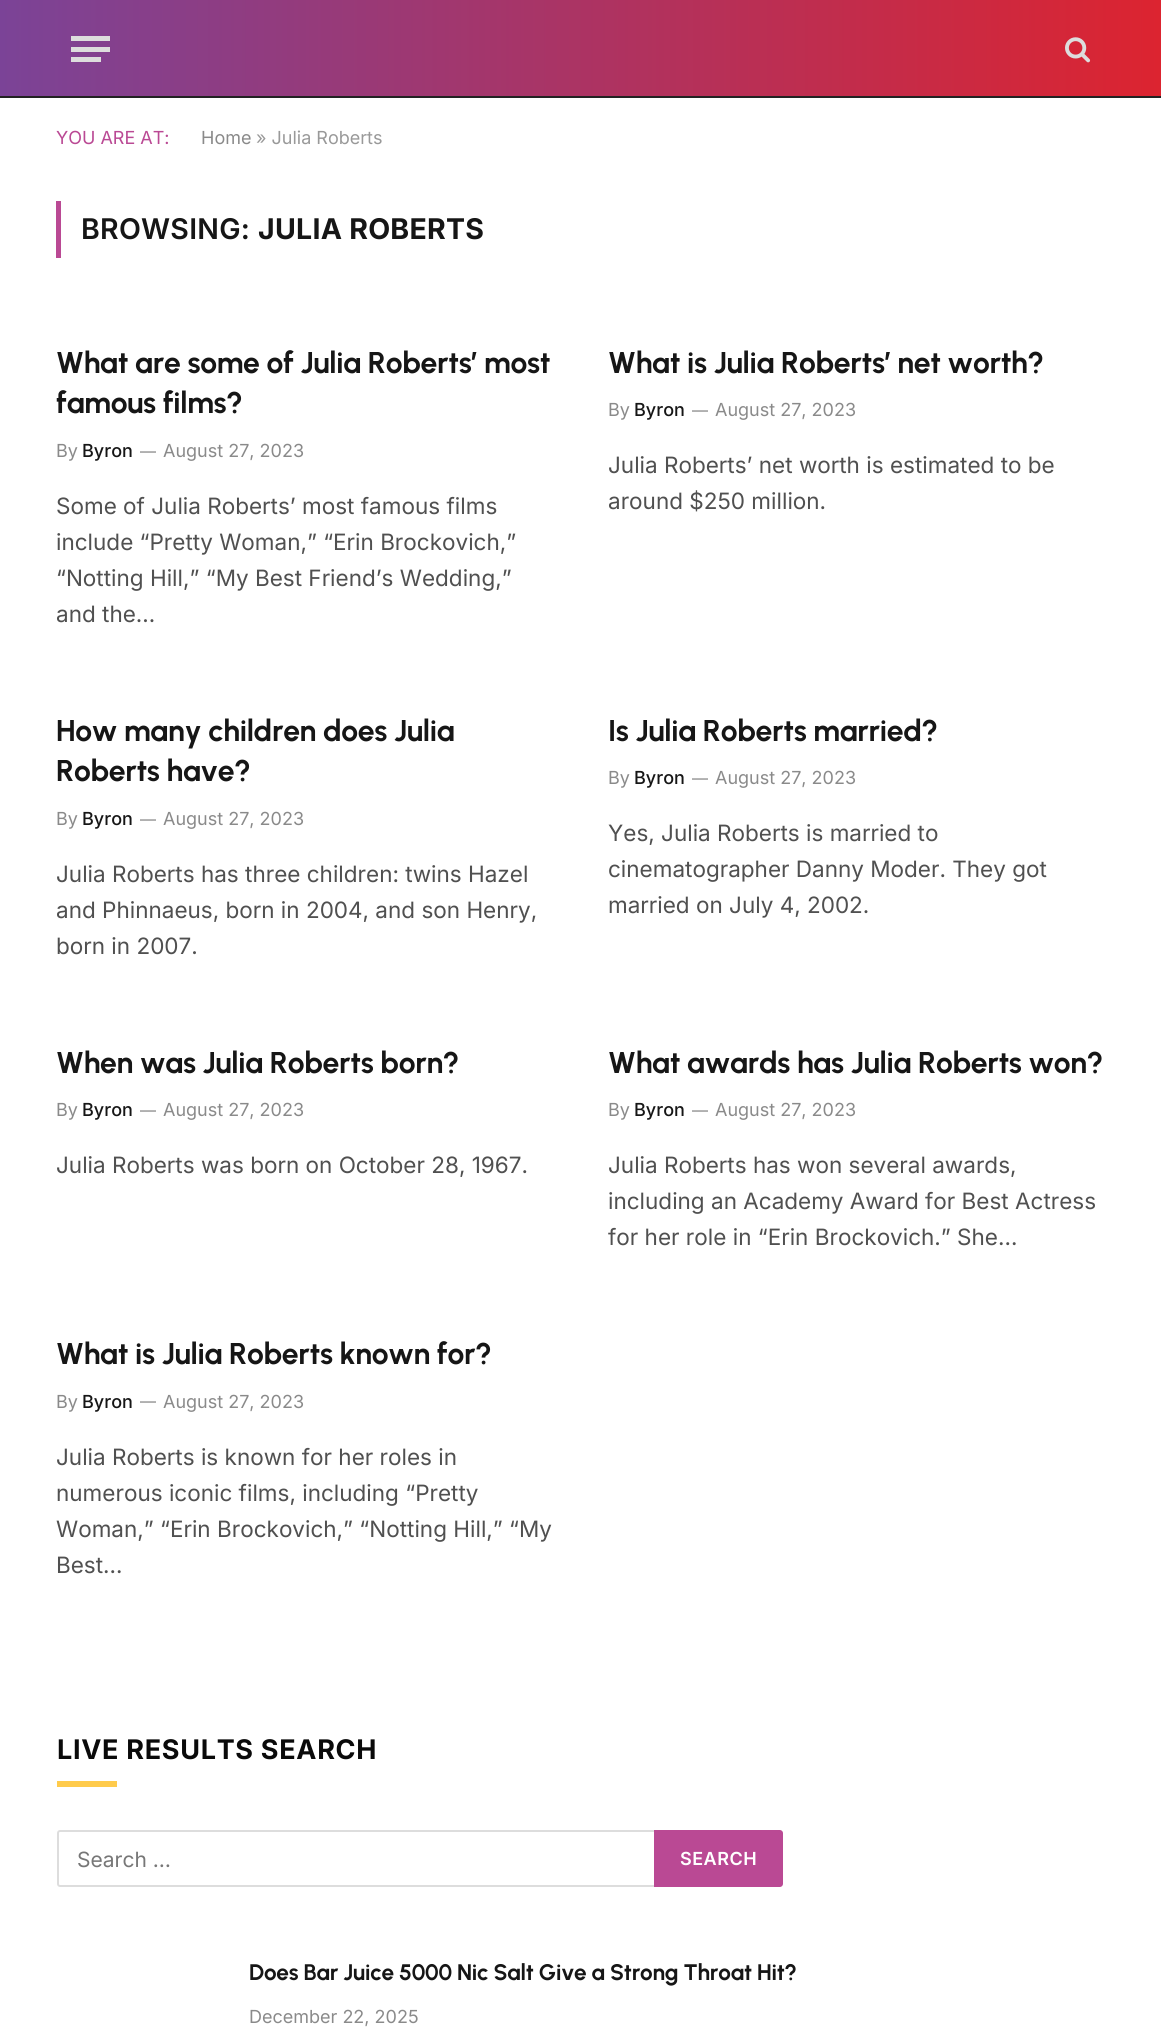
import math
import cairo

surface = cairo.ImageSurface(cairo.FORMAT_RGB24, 1161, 2031)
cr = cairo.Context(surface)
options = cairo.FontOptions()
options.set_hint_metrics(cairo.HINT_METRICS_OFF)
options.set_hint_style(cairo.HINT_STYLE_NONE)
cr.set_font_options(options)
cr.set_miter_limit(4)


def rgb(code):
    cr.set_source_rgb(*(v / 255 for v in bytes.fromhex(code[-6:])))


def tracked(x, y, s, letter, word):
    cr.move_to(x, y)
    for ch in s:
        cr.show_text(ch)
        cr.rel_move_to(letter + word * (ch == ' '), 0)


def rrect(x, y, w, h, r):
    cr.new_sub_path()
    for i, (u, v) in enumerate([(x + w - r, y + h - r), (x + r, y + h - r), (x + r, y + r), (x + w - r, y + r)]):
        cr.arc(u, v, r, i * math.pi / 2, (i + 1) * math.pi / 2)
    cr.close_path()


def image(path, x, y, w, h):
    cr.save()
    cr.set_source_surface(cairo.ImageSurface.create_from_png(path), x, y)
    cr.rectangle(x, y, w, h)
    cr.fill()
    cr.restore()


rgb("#ffffff")
cr.paint()
gradient = cairo.LinearGradient(0, 48, 1161, 48)
gradient.add_color_stop_rgba(0, 0.482, 0.263, 0.592, 1)
gradient.add_color_stop_rgba(1, 0.863, 0.141, 0.188, 1)
cr.set_source(gradient)
cr.rectangle(0, 0, 1161, 96)
cr.fill()
for x, y, w, h, color in [
    (0, 96, 1161, 2, "#222222"),
    (71, 57, 30, 5, "#dddddd"),
    (71, 36, 39, 5, "#dddddd"),
    (71, 47, 39, 5, "#dddddd"),
]:
    rgb(color)
    cr.rectangle(x, y, w, h)
    cr.fill()
image("img/1.png", 1065, 37, 26, 26)
rgb("#ba4994")
cr.rectangle(56, 201, 5, 57)
cr.fill()
rgb("#ffcb4c")
cr.rectangle(57, 1781, 60, 6)
cr.fill()
rrect(58, 1831, 598, 55, 2)
rgb("#dddddd")
cr.stroke()
rgb("#ba4994")
cr.new_path()
cr.move_to(654, 1830)
cr.line_to(780, 1830)
cr.curve_to(781.5, 1830, 783, 1831.5, 783, 1833)
cr.line_to(783, 1884)
cr.curve_to(783, 1885.5, 781.5, 1887, 780, 1887)
cr.line_to(654, 1887)
cr.close_path()
cr.fill()
cr.select_font_face("Inter")
cr.set_font_size(18)
cr.move_to(56, 144)
cr.show_text("YOU ARE AT:")
rgb("#8a8a8a")
cr.move_to(201, 144)
cr.show_text("Home")
rgb("#999999")
cr.move_to(256, 144)
cr.show_text("» Julia Roberts")
cr.select_font_face("Inter SemiBold")
cr.set_font_size(28.5)
rgb("#161616")
tracked(81, 239, "BROWSING:", 0.25, 0)
cr.select_font_face("Inter", cairo.FONT_SLANT_NORMAL, cairo.FONT_WEIGHT_BOLD)
tracked(258, 239, "JULIA ROBERTS", 0.25, 0)
cr.select_font_face("Urbanist", cairo.FONT_SLANT_NORMAL, cairo.FONT_WEIGHT_BOLD)
cr.set_font_size(30)
tracked(56, 373, "What are some of Julia Roberts’ most", -0.3, 0)
tracked(56, 413, "famous films?", -0.3, 0)
cr.select_font_face("Inter")
cr.set_font_size(18)
rgb("#8a8a8a")
cr.move_to(56, 457)
cr.show_text("By")
cr.select_font_face("Inter Medium")
rgb("#161616")
cr.move_to(82, 457)
cr.show_text("Byron")
cr.select_font_face("Inter")
cr.set_font_size(16)
rgb("#8a8a8a")
cr.move_to(140, 457)
cr.show_text("—")
cr.set_font_size(18)
cr.move_to(163, 457)
cr.show_text("August 27, 2023")
cr.set_font_size(22.5)
rgb("#505050")
for x, y, s in [
    (56, 514, "Some of Julia Roberts’ most famous films"),
    (56, 550, "include “Pretty Woman,” “Erin Brockovich,”"),
    (56, 586, "“Notting Hill,” “My Best Friend’s Wedding,”"),
    (56, 622, "and the…"),
]:
    cr.move_to(x, y)
    cr.show_text(s)
cr.select_font_face("Urbanist", cairo.FONT_SLANT_NORMAL, cairo.FONT_WEIGHT_BOLD)
cr.set_font_size(30)
rgb("#161616")
tracked(608, 373, "What is Julia Roberts’ net worth?", -0.3, 0)
cr.select_font_face("Inter")
cr.set_font_size(18)
rgb("#8a8a8a")
cr.move_to(608, 416)
cr.show_text("By")
cr.select_font_face("Inter Medium")
rgb("#161616")
cr.move_to(634, 416)
cr.show_text("Byron")
cr.select_font_face("Inter")
cr.set_font_size(16)
rgb("#8a8a8a")
cr.move_to(692, 416)
cr.show_text("—")
cr.set_font_size(18)
cr.move_to(715, 416)
cr.show_text("August 27, 2023")
cr.set_font_size(22.5)
rgb("#505050")
cr.move_to(608, 473)
cr.show_text("Julia Roberts’ net worth is estimated to be")
cr.move_to(608, 509)
cr.show_text("around $250 million.")
cr.select_font_face("Urbanist", cairo.FONT_SLANT_NORMAL, cairo.FONT_WEIGHT_BOLD)
cr.set_font_size(30)
rgb("#161616")
tracked(56, 741, "How many children does Julia", -0.3, 0)
tracked(56, 781, "Roberts have?", -0.3, 0)
cr.select_font_face("Inter")
cr.set_font_size(18)
rgb("#8a8a8a")
cr.move_to(56, 825)
cr.show_text("By")
cr.select_font_face("Inter Medium")
rgb("#161616")
cr.move_to(82, 825)
cr.show_text("Byron")
cr.select_font_face("Inter")
cr.set_font_size(16)
rgb("#8a8a8a")
cr.move_to(140, 825)
cr.show_text("—")
cr.set_font_size(18)
cr.move_to(163, 825)
cr.show_text("August 27, 2023")
cr.set_font_size(22.5)
rgb("#505050")
for x, y, s in [
    (56, 882, "Julia Roberts has three children: twins Hazel"),
    (56, 918, "and Phinnaeus, born in 2004, and son Henry,"),
    (56, 954, "born in 2007."),
]:
    cr.move_to(x, y)
    cr.show_text(s)
cr.select_font_face("Urbanist", cairo.FONT_SLANT_NORMAL, cairo.FONT_WEIGHT_BOLD)
cr.set_font_size(30)
rgb("#161616")
tracked(608, 741, "Is Julia Roberts married?", -0.3, 0)
cr.select_font_face("Inter")
cr.set_font_size(18)
rgb("#8a8a8a")
cr.move_to(608, 784)
cr.show_text("By")
cr.select_font_face("Inter Medium")
rgb("#161616")
cr.move_to(634, 784)
cr.show_text("Byron")
cr.select_font_face("Inter")
cr.set_font_size(16)
rgb("#8a8a8a")
cr.move_to(692, 784)
cr.show_text("—")
cr.set_font_size(18)
cr.move_to(715, 784)
cr.show_text("August 27, 2023")
cr.set_font_size(22.5)
rgb("#505050")
for x, y, s in [
    (608, 841, "Yes, Julia Roberts is married to"),
    (608, 877, "cinematographer Danny Moder. They got"),
    (608, 913, "married on July 4, 2002."),
]:
    cr.move_to(x, y)
    cr.show_text(s)
cr.select_font_face("Urbanist", cairo.FONT_SLANT_NORMAL, cairo.FONT_WEIGHT_BOLD)
cr.set_font_size(30)
rgb("#161616")
tracked(56, 1073, "When was Julia Roberts born?", -0.3, 0)
cr.select_font_face("Inter")
cr.set_font_size(18)
rgb("#8a8a8a")
cr.move_to(56, 1116)
cr.show_text("By")
cr.select_font_face("Inter Medium")
rgb("#161616")
cr.move_to(82, 1116)
cr.show_text("Byron")
cr.select_font_face("Inter")
cr.set_font_size(16)
rgb("#8a8a8a")
cr.move_to(140, 1116)
cr.show_text("—")
cr.set_font_size(18)
cr.move_to(163, 1116)
cr.show_text("August 27, 2023")
cr.set_font_size(22.5)
rgb("#505050")
cr.move_to(56, 1173)
cr.show_text("Julia Roberts was born on October 28, 1967.")
cr.select_font_face("Urbanist", cairo.FONT_SLANT_NORMAL, cairo.FONT_WEIGHT_BOLD)
cr.set_font_size(30)
rgb("#161616")
tracked(608, 1073, "What awards has Julia Roberts won?", -0.3, 0)
cr.select_font_face("Inter")
cr.set_font_size(18)
rgb("#8a8a8a")
cr.move_to(608, 1116)
cr.show_text("By")
cr.select_font_face("Inter Medium")
rgb("#161616")
cr.move_to(634, 1116)
cr.show_text("Byron")
cr.select_font_face("Inter")
cr.set_font_size(16)
rgb("#8a8a8a")
cr.move_to(692, 1116)
cr.show_text("—")
cr.set_font_size(18)
cr.move_to(715, 1116)
cr.show_text("August 27, 2023")
cr.set_font_size(22.5)
rgb("#505050")
for x, y, s in [
    (608, 1173, "Julia Roberts has won several awards,"),
    (608, 1209, "including an Academy Award for Best Actress"),
    (608, 1245, "for her role in “Erin Brockovich.” She…"),
]:
    cr.move_to(x, y)
    cr.show_text(s)
cr.select_font_face("Urbanist", cairo.FONT_SLANT_NORMAL, cairo.FONT_WEIGHT_BOLD)
cr.set_font_size(30)
rgb("#161616")
tracked(56, 1364, "What is Julia Roberts known for?", -0.3, 0)
cr.select_font_face("Inter")
cr.set_font_size(18)
rgb("#8a8a8a")
cr.move_to(56, 1408)
cr.show_text("By")
cr.select_font_face("Inter Medium")
rgb("#161616")
cr.move_to(82, 1408)
cr.show_text("Byron")
cr.select_font_face("Inter")
cr.set_font_size(16)
rgb("#8a8a8a")
cr.move_to(140, 1407)
cr.show_text("—")
cr.set_font_size(18)
cr.move_to(163, 1408)
cr.show_text("August 27, 2023")
cr.set_font_size(22.5)
rgb("#505050")
for x, y, s in [
    (56, 1465, "Julia Roberts is known for her roles in"),
    (56, 1501, "numerous iconic films, including “Pretty"),
    (56, 1537, "Woman,” “Erin Brockovich,” “Notting Hill,” “My"),
    (56, 1573, "Best…"),
]:
    cr.move_to(x, y)
    cr.show_text(s)
cr.select_font_face("Inter", cairo.FONT_SLANT_NORMAL, cairo.FONT_WEIGHT_BOLD)
cr.set_font_size(27)
rgb("#0a0a0a")
tracked(57, 1759, "LIVE RESULTS SEARCH", 0.7, 0)
cr.select_font_face("Inter")
cr.set_font_size(21)
rgb("#777777")
cr.move_to(77, 1867)
cr.show_text("Search …")
cr.select_font_face("Inter SemiBold")
cr.set_font_size(18)
rgb("#ffffff")
tracked(680, 1865, "SEARCH", 0.5, 0)
cr.select_font_face("Urbanist", cairo.FONT_SLANT_NORMAL, cairo.FONT_WEIGHT_BOLD)
cr.set_font_size(22.5)
rgb("#161616")
tracked(249, 1980, "Does Bar Juice 5000 Nic Salt Give a Strong Throat Hit?", -0.22, 0)
cr.select_font_face("Inter")
cr.set_font_size(18)
rgb("#8a8a8a")
cr.move_to(249, 2023)
cr.show_text("December 22, 2025")
surface.write_to_png("page.png")
